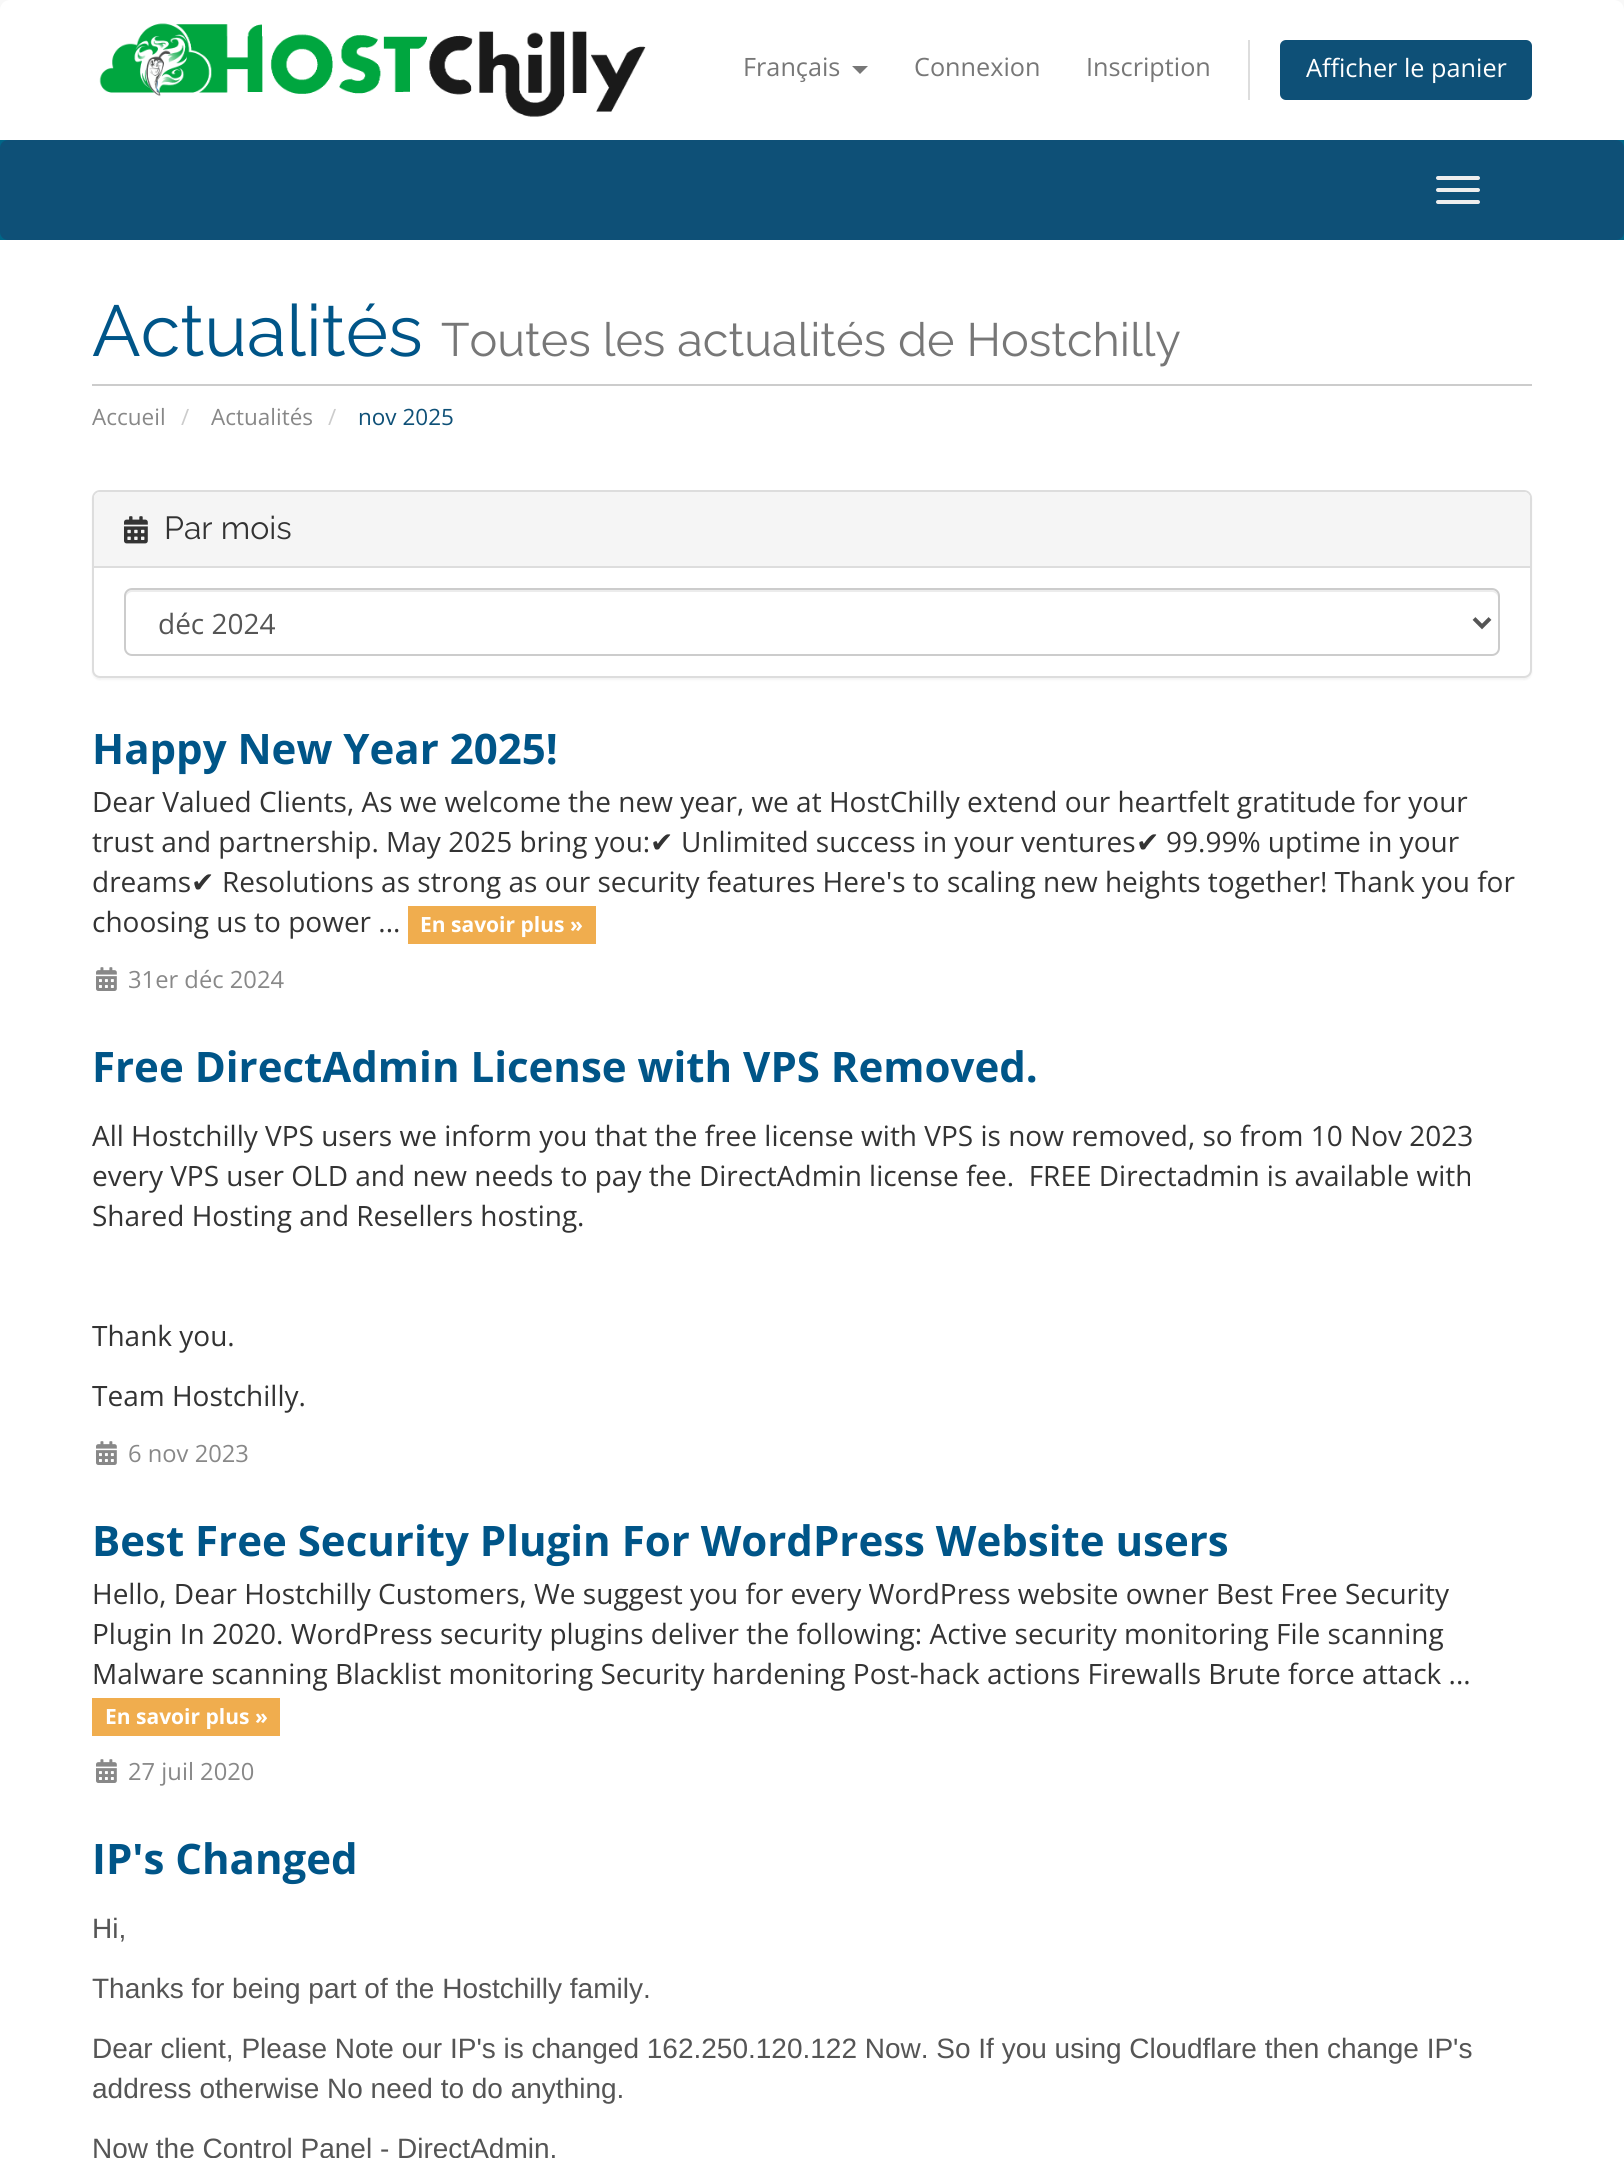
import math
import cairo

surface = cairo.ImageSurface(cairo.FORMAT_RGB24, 1624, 2158)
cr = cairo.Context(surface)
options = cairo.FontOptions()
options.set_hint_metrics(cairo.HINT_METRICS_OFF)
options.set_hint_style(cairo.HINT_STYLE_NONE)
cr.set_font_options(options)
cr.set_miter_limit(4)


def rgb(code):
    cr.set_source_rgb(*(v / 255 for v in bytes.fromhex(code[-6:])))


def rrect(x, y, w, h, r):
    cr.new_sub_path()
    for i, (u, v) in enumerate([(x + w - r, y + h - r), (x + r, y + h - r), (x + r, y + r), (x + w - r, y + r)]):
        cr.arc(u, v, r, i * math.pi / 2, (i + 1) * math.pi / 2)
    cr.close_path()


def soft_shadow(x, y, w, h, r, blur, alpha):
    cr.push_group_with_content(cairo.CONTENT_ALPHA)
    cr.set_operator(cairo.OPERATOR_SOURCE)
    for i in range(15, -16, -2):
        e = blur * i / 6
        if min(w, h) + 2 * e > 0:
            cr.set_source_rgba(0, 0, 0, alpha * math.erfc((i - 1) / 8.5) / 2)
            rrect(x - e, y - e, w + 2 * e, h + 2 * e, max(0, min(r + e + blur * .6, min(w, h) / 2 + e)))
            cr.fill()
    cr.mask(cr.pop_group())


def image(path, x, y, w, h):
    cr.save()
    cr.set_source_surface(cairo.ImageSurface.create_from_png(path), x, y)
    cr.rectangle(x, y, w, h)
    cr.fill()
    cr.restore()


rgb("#f8f8f8")
cr.paint()
rgb("#ffffff")
cr.new_path()
cr.move_to(10, 0)
cr.line_to(1614, 0)
cr.curve_to(1619.5, 0, 1624, 4.5, 1624, 10)
cr.line_to(1624, 140)
cr.line_to(0, 140)
cr.line_to(0, 10)
cr.curve_to(0, 4.5, 4.5, 0, 10, 0)
cr.close_path()
cr.fill()
image("img/1.png", 99, 23, 547, 94)
rgb("#777777")
cr.new_path()
cr.move_to(852, 66)
cr.line_to(868, 66)
cr.line_to(860, 74)
cr.close_path()
cr.fill()
rgb("#dddddd")
cr.rectangle(1248, 40, 2, 60)
cr.fill()
rgb("#0e5077")
rrect(1280, 40, 252, 60, 6)
cr.fill()
rgb("#006687")
cr.rectangle(0, 140, 1624, 100)
cr.fill()
rgb("#0e5077")
rrect(0, 140, 1624, 100, 8)
cr.fill()
rgb("#eeeeee")
rrect(1436, 176, 44, 4, 2)
cr.fill()
rrect(1436, 188, 44, 4, 2)
cr.fill()
rrect(1436, 200, 44, 4, 2)
cr.fill()
rgb("#ffffff")
cr.rectangle(0, 240, 1624, 1918)
cr.fill()
rgb("#cccccc")
cr.rectangle(92, 384, 1440, 2)
cr.fill()
rgb("#000000")
soft_shadow(92, 492, 1440, 188, 8, 1, 0.05)
rgb("#ffffff")
rrect(93, 491, 1438, 186, 7)
cr.fill_preserve()
rgb("#dddddd")
cr.stroke()
rgb("#f5f5f5")
cr.new_path()
cr.move_to(100, 492)
cr.line_to(1524, 492)
cr.curve_to(1527.5, 492, 1530, 494.5, 1530, 498)
cr.line_to(1530, 568)
cr.line_to(94, 568)
cr.line_to(94, 498)
cr.curve_to(94, 494.5, 96.5, 492, 100, 492)
cr.close_path()
cr.fill()
rgb("#dddddd")
cr.rectangle(94, 566, 1436, 2)
cr.fill()
image("img/2.png", 124, 516, 24, 28)
rgb("#ececec")
cr.new_path()
cr.move_to(132, 592)
cr.line_to(1492, 592)
cr.curve_to(1495, 592, 1498, 595, 1498, 598)
cr.line_to(1498, 596)
cr.curve_to(1498, 593, 1495, 590, 1492, 590)
cr.line_to(132, 590)
cr.curve_to(129, 590, 126, 593, 126, 596)
cr.line_to(126, 598)
cr.curve_to(126, 595, 129, 592, 132, 592)
cr.close_path()
cr.fill()
rrect(125, 589, 1374, 66, 7)
rgb("#cccccc")
cr.stroke()
cr.new_path()
cr.move_to(1474, 618.5)
cr.line_to(1482, 626.5)
cr.line_to(1490, 618.5)
rgb("#555555")
cr.set_line_width(4)
cr.stroke()
rgb("#f0ad4e")
cr.rectangle(408, 906, 188, 38)
cr.fill()
image("img/3.png", 96, 967, 21, 24)
image("img/3.png", 96, 1441, 21, 24)
cr.rectangle(92, 1698, 188, 38)
cr.fill()
image("img/3.png", 96, 1759, 21, 24)
cr.select_font_face("Open Sans")
cr.set_font_size(25.25)
rgb("#777777")
for x, y, s in [
    (743, 76, "Français"),
    (914, 76, "Connexion"),
    (1086, 76, "Inscription"),
]:
    cr.move_to(x, y)
    cr.show_text(s)
rgb("#ffffff")
cr.move_to(1306, 77)
cr.show_text("Afficher le panier")
cr.select_font_face("Raleway")
cr.set_font_size(72)
rgb("#005588")
cr.move_to(92, 356)
cr.show_text("Actualités")
cr.set_font_size(46.75)
rgb("#777777")
cr.move_to(441, 356)
cr.show_text("Toutes les actualités de Hostchilly")
cr.select_font_face("Open Sans")
cr.set_font_size(22.5)
rgb("#888888")
cr.move_to(92, 425)
cr.show_text("Accueil")
rgb("#cccccc")
cr.move_to(181, 425)
cr.show_text("/")
rgb("#888888")
cr.move_to(211, 425)
cr.show_text("Actualités")
rgb("#cccccc")
cr.move_to(328, 425)
cr.show_text("/")
rgb("#0e5077")
cr.move_to(358, 425)
cr.show_text("nov 2025")
cr.select_font_face("Raleway")
cr.set_font_size(32)
rgb("#333333")
cr.move_to(164, 539)
cr.show_text("Par mois")
cr.select_font_face("Open Sans")
cr.set_font_size(28)
rgb("#555555")
cr.move_to(158, 634)
cr.show_text("déc 2024")
cr.select_font_face("Open Sans", cairo.FONT_SLANT_NORMAL, cairo.FONT_WEIGHT_BOLD)
cr.set_font_size(42)
rgb("#005588")
cr.move_to(92, 764)
cr.show_text("Happy New Year 2025!")
cr.select_font_face("Open Sans")
cr.set_font_size(28)
rgb("#333333")
cr.move_to(92, 812)
cr.show_text("Dear Valued Clients, As we welcome the new year, we at HostChilly extend our heartfelt gratitude for your")
cr.move_to(92, 852)
cr.show_text("trust and partnership. May 2025 bring you:")
cr.select_font_face("DejaVu Sans")
cr.move_to(650, 852)
cr.show_text("✔")
cr.select_font_face("Open Sans")
cr.move_to(681, 852)
cr.show_text("Unlimited success in your ventures")
cr.select_font_face("DejaVu Sans")
cr.move_to(1136, 852)
cr.show_text("✔")
cr.select_font_face("Open Sans")
cr.move_to(1166, 852)
cr.show_text("99.99% uptime in your")
cr.move_to(92, 892)
cr.show_text("dreams")
cr.select_font_face("DejaVu Sans")
cr.move_to(191, 892)
cr.show_text("✔")
cr.select_font_face("Open Sans")
cr.move_to(222, 892)
cr.show_text("Resolutions as strong as our security features Here's to scaling new heights together! Thank you for")
cr.move_to(92, 932)
cr.show_text("choosing us to power ...")
cr.select_font_face("Open Sans", cairo.FONT_SLANT_NORMAL, cairo.FONT_WEIGHT_BOLD)
cr.set_font_size(21)
rgb("#ffffff")
cr.move_to(420, 932)
cr.show_text("En savoir plus »")
cr.select_font_face("Open Sans")
cr.set_font_size(23.75)
rgb("#888888")
cr.move_to(128, 988)
cr.show_text("31er déc 2024")
cr.select_font_face("Open Sans", cairo.FONT_SLANT_NORMAL, cairo.FONT_WEIGHT_BOLD)
cr.set_font_size(42)
rgb("#005588")
cr.move_to(92, 1082)
cr.show_text("Free DirectAdmin License with VPS Removed.")
cr.select_font_face("Open Sans")
cr.set_font_size(28)
rgb("#333333")
for x, y, s in [
    (92, 1146, "All Hostchilly VPS users we inform you that the free license with VPS is now removed, so from 10 Nov 2023"),
    (92, 1186, "every VPS user OLD and new needs to pay the DirectAdmin license fee.  FREE Directadmin is available with"),
    (92, 1226, "Shared Hosting and Resellers hosting."),
    (92, 1346, "Thank you."),
    (92, 1406, "Team Hostchilly."),
]:
    cr.move_to(x, y)
    cr.show_text(s)
cr.set_font_size(23.75)
rgb("#888888")
cr.move_to(128, 1462)
cr.show_text("6 nov 2023")
cr.select_font_face("Open Sans", cairo.FONT_SLANT_NORMAL, cairo.FONT_WEIGHT_BOLD)
cr.set_font_size(42)
rgb("#005588")
cr.move_to(92, 1556)
cr.show_text("Best Free Security Plugin For WordPress Website users")
cr.select_font_face("Open Sans")
cr.set_font_size(28)
rgb("#333333")
for x, y, s in [
    (92, 1604, "Hello, Dear Hostchilly Customers, We suggest you for every WordPress website owner Best Free Security"),
    (92, 1644, "Plugin In 2020. WordPress security plugins deliver the following: Active security monitoring File scanning"),
    (92, 1684, "Malware scanning Blacklist monitoring Security hardening Post-hack actions Firewalls Brute force attack ..."),
]:
    cr.move_to(x, y)
    cr.show_text(s)
cr.select_font_face("Open Sans", cairo.FONT_SLANT_NORMAL, cairo.FONT_WEIGHT_BOLD)
cr.set_font_size(21)
rgb("#ffffff")
cr.move_to(105, 1724)
cr.show_text("En savoir plus »")
cr.select_font_face("Open Sans")
cr.set_font_size(23.75)
rgb("#888888")
cr.move_to(128, 1780)
cr.show_text("27 juil 2020")
cr.select_font_face("Open Sans", cairo.FONT_SLANT_NORMAL, cairo.FONT_WEIGHT_BOLD)
cr.set_font_size(42)
rgb("#005588")
cr.move_to(92, 1874)
cr.show_text("IP's Changed")
cr.select_font_face("Liberation Sans")
cr.set_font_size(28)
rgb("#555555")
for x, y, s in [
    (92, 1938, "Hi,"),
    (92, 1998, "Thanks for being part of the Hostchilly family."),
    (92, 2058, "Dear client, Please Note our IP's is changed 162.250.120.122 Now. So If you using Cloudflare then change IP's"),
    (92, 2098, "address otherwise No need to do anything."),
    (92, 2158, "Now the Control Panel - DirectAdmin."),
]:
    cr.move_to(x, y)
    cr.show_text(s)
surface.write_to_png("page.png")
